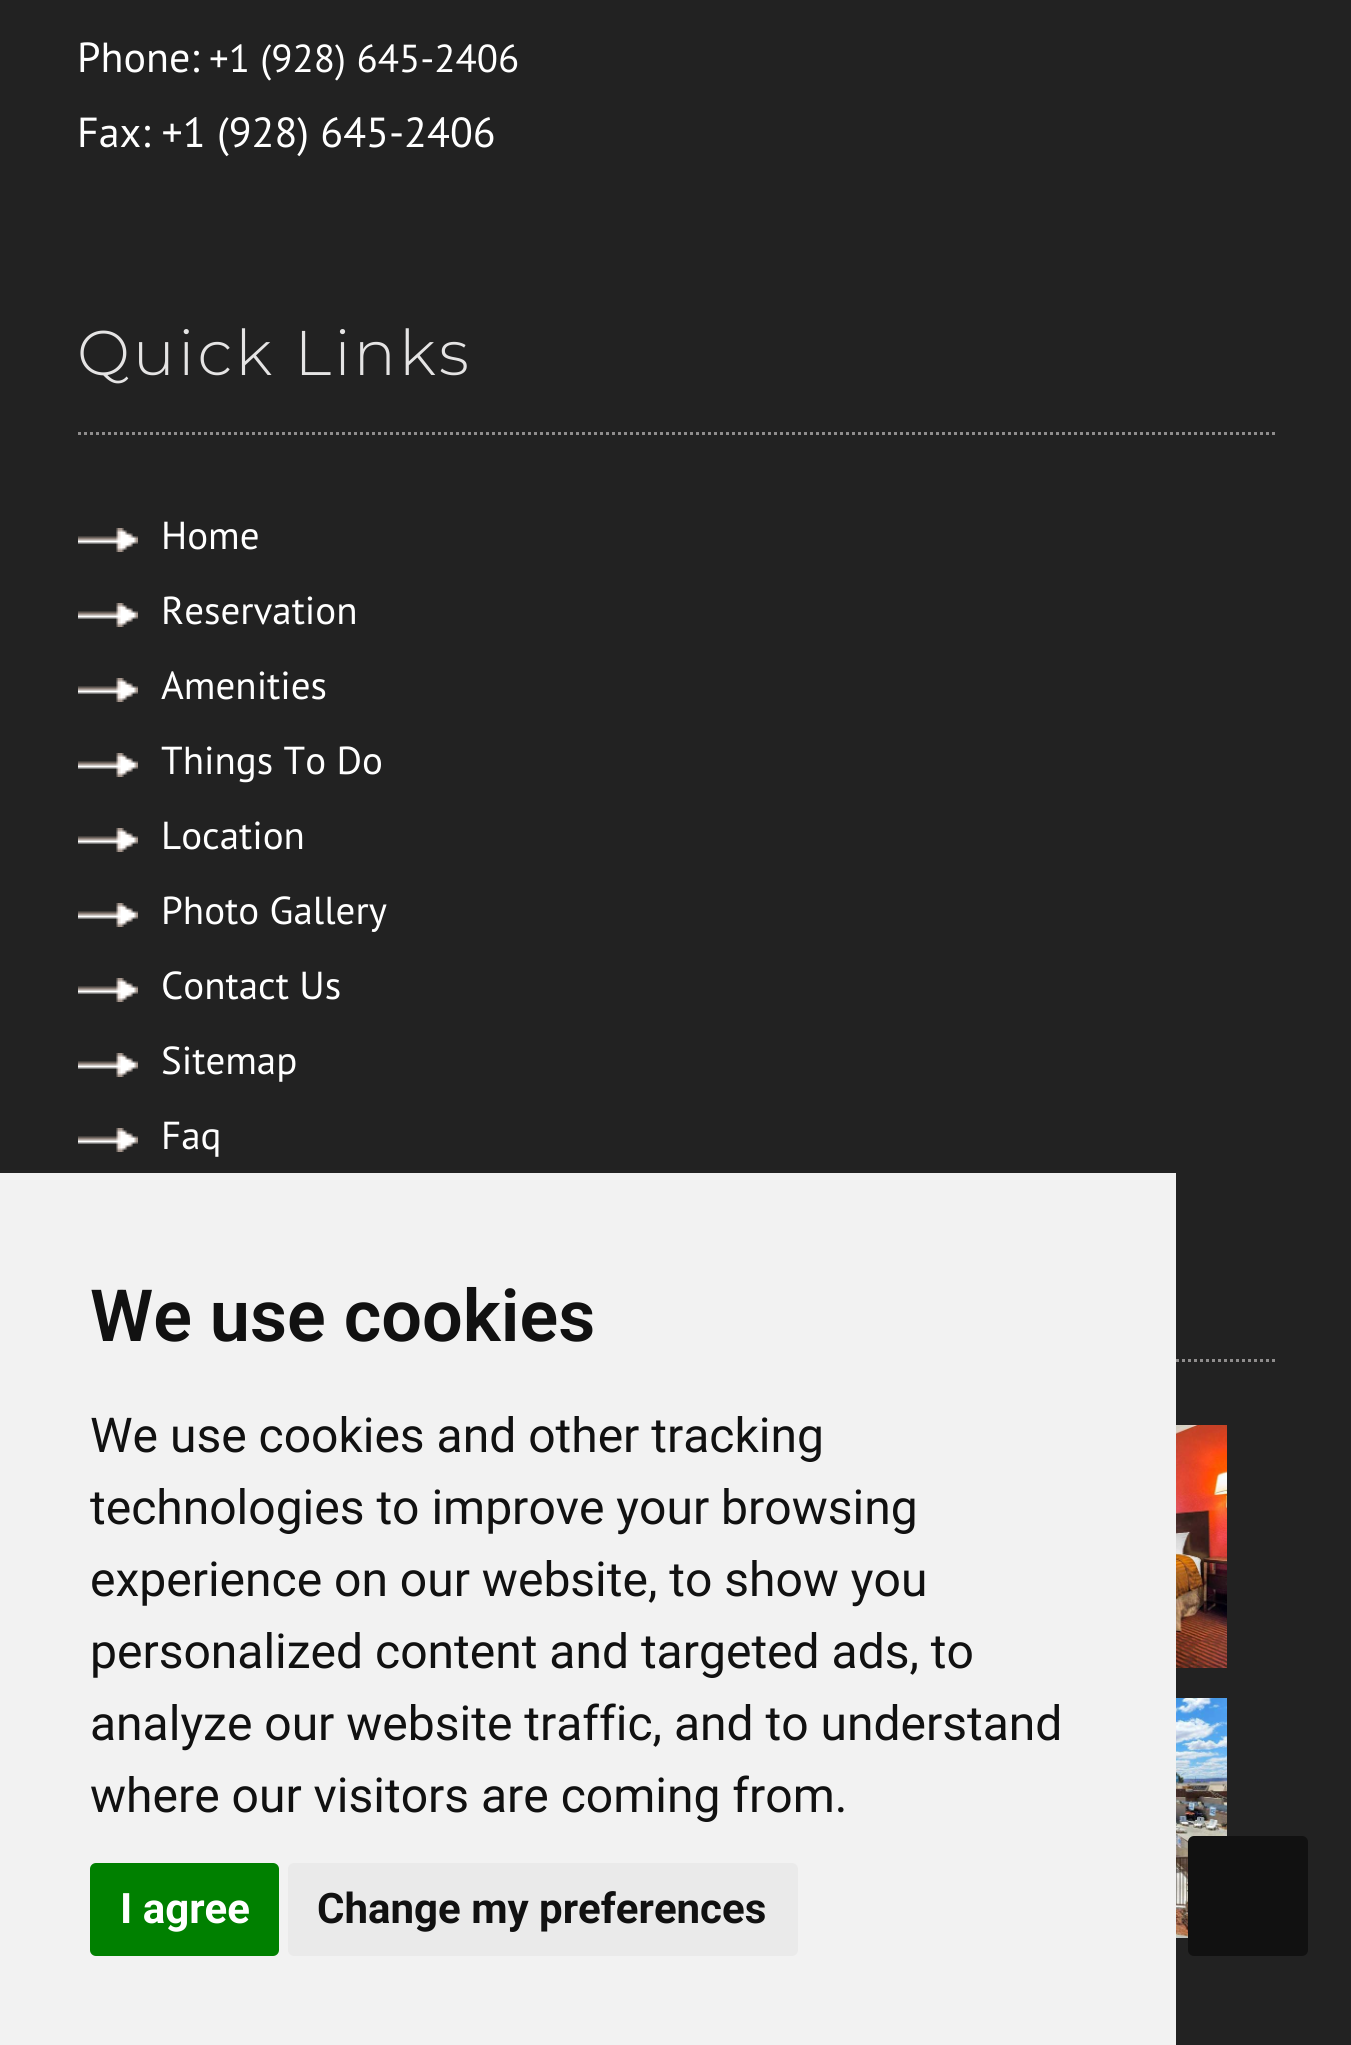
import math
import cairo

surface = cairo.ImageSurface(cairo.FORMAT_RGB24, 1351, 2045)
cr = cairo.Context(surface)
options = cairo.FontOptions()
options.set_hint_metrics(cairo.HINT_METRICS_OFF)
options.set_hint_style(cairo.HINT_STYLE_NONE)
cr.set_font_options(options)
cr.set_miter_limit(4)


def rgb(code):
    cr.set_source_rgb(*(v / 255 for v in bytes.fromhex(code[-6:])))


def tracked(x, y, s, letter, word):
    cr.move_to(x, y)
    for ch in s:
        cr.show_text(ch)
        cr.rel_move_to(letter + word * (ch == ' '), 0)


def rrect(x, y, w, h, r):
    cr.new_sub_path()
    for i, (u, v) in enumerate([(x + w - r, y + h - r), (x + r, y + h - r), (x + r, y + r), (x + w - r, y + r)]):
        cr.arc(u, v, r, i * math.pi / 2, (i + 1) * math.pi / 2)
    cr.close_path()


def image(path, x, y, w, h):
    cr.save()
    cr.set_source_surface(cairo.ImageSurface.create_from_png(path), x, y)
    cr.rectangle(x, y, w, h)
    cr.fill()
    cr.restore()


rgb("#222222")
cr.paint()
cr.new_path()
cr.move_to(78, 433.5)
cr.line_to(1275, 433.5)
rgb("#8f8d8d")
cr.set_line_width(3)
cr.set_dash([3, 3])
cr.stroke()
image("img/1.png", 78, 528, 60, 24)
image("img/1.png", 78, 603, 60, 24)
image("img/1.png", 78, 678, 60, 24)
image("img/1.png", 78, 753, 60, 24)
image("img/1.png", 78, 828, 60, 24)
image("img/1.png", 78, 903, 60, 24)
image("img/1.png", 78, 978, 60, 24)
image("img/1.png", 78, 1053, 60, 24)
image("img/1.png", 78, 1128, 60, 24)
cr.new_path()
cr.move_to(78, 1360.5)
cr.line_to(1275, 1360.5)
cr.stroke()
image("img/2.png", 1176, 1425, 51, 243)
image("img/3.png", 1176, 1698, 51, 240)
rgb("#f2f2f2")
cr.rectangle(0, 1173, 1176, 872)
cr.fill()
rgb("#008000")
rrect(90, 1863, 189, 93, 6)
cr.fill()
rgb("#eaeaea")
rrect(288, 1863, 510, 93, 6)
cr.fill()
rgb("#111111")
rrect(1188, 1836, 120, 120, 6)
cr.fill()
cr.select_font_face("PT Sans")
cr.set_font_size(42)
rgb("#ffffff")
cr.move_to(77, 72)
cr.show_text("Phone:")
cr.set_font_size(39)
cr.move_to(209, 72)
cr.show_text("+1 (928) 645-2406")
cr.set_font_size(42)
cr.move_to(77, 147)
cr.show_text("Fax: +1 (928) 645-2406")
cr.select_font_face("Montserrat Light")
cr.set_font_size(63)
rgb("#e5e4e4")
tracked(77, 375, "Quick Links", 3, 0)
cr.select_font_face("PT Sans")
cr.set_font_size(39)
rgb("#ffffff")
for x, y, s in [
    (161, 549, "Home"),
    (161, 624, "Reservation"),
    (161, 699, "Amenities"),
    (161, 774, "Things To Do"),
    (161, 849, "Location"),
    (161, 924, "Photo Gallery"),
    (161, 999, "Contact Us"),
    (161, 1074, "Sitemap"),
    (161, 1149, "Faq"),
]:
    cr.move_to(x, y)
    cr.show_text(s)
cr.select_font_face("Roboto SemiBold")
cr.set_font_size(72)
rgb("#111111")
cr.move_to(90, 1341)
cr.show_text("We use cookies")
cr.select_font_face("Roboto")
cr.set_font_size(48)
for x, y, s in [
    (90, 1452, "We use cookies and other tracking"),
    (90, 1524, "technologies to improve your browsing"),
    (90, 1596, "experience on our website, to show you"),
    (90, 1668, "personalized content and targeted ads, to"),
    (90, 1740, "analyze our website traffic, and to understand"),
    (90, 1812, "where our visitors are coming from."),
]:
    cr.move_to(x, y)
    cr.show_text(s)
cr.select_font_face("Roboto", cairo.FONT_SLANT_NORMAL, cairo.FONT_WEIGHT_BOLD)
cr.set_font_size(42)
rgb("#ffffff")
cr.move_to(120, 1923)
cr.show_text("I agree")
rgb("#111111")
cr.move_to(317, 1923)
cr.show_text("Change my preferences")
surface.write_to_png("page.png")
